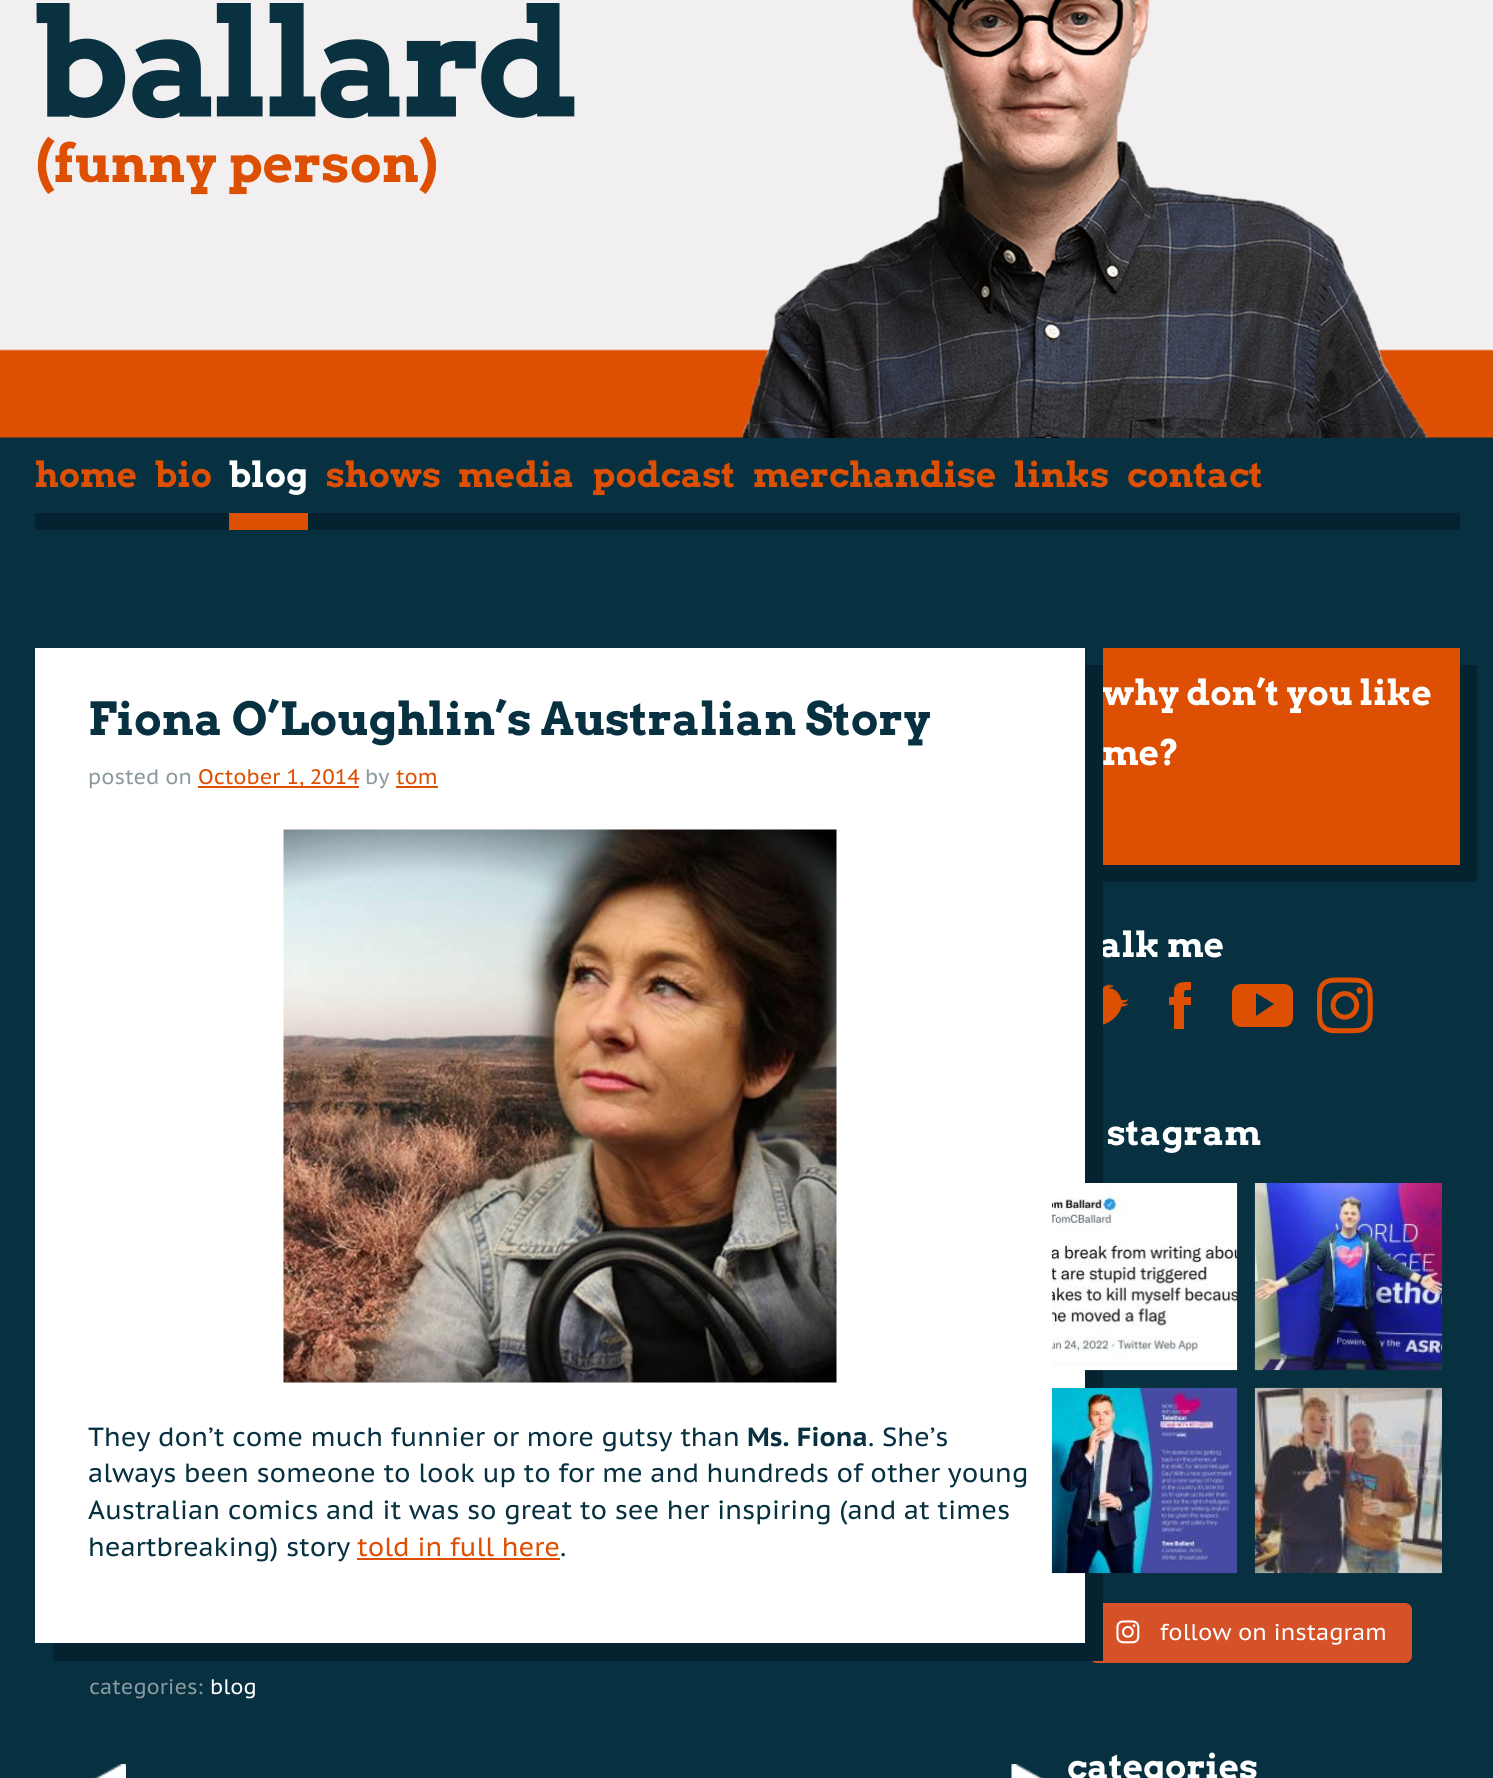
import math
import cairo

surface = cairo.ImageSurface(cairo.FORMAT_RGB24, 1493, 1778)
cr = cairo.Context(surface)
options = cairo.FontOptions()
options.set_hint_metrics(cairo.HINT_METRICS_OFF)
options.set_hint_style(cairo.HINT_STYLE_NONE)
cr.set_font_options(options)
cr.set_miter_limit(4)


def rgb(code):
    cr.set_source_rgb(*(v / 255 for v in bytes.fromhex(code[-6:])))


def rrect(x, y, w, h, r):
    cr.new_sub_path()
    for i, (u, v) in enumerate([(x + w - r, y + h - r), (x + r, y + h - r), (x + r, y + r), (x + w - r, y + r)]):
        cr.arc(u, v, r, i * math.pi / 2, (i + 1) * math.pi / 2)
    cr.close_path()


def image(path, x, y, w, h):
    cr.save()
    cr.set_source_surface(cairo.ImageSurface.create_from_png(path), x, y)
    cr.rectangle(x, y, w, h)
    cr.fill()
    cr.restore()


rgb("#073141")
cr.paint()
image("img/1.png", 0, 0, 1493, 438)
image("img/2.png", 36, 3, 539, 116)
image("img/3.png", 741, 0, 687, 438)
rgb("#04222f")
cr.rectangle(35, 513, 1425, 17)
cr.fill()
rgb("#dd4f02")
cr.rectangle(229, 513, 79, 17)
cr.fill()
image("img/5.png", 94, 1764, 32, 14)
image("img/6.png", 1011, 1764, 33, 14)
rgb("#04222f")
cr.new_path()
cr.move_to(1085, 864)
cr.line_to(1085, 882)
cr.line_to(1477, 882)
cr.line_to(1477, 665)
cr.line_to(1460, 665)
cr.line_to(1460, 864)
cr.close_path()
cr.fill()
rgb("#dd4f02")
cr.rectangle(1103, 648, 357, 217)
cr.fill()
image("img/7.png", 1103, 984, 26, 41)
cr.new_path()
cr.move_to(1174, 991)
cr.line_to(1174, 997)
cr.line_to(1169, 997)
cr.line_to(1169, 1005)
cr.line_to(1174, 1005)
cr.line_to(1174, 1029)
cr.line_to(1184, 1029)
cr.line_to(1184, 1005)
cr.line_to(1191, 1005)
cr.line_to(1191, 997)
cr.line_to(1184, 997)
cr.curve_to(1184, 989, 1184, 990, 1191, 990)
cr.line_to(1191, 982)
cr.curve_to(1184, 982, 1174, 981, 1174, 991)
cr.close_path()
cr.fill()
cr.new_path()
cr.move_to(1293, 993)
cr.curve_to(1293, 988, 1289, 984, 1284, 984)
cr.line_to(1241, 984)
cr.curve_to(1236, 984, 1232, 988, 1232, 993)
cr.line_to(1232, 1018)
cr.curve_to(1232, 1023, 1236, 1027, 1241, 1027)
cr.line_to(1284, 1027)
cr.curve_to(1289, 1027, 1293, 1023, 1293, 1018)
cr.close_path()
cr.move_to(1256, 1016)
cr.line_to(1256, 993)
cr.line_to(1274, 1004)
cr.close_path()
cr.fill()
image("img/8.png", 1317, 977, 56, 57)
image("img/10.png", 1254, 1183, 188, 188)
image("img/12.png", 1254, 1387, 188, 187)
rgb("#d55127")
rrect(1090, 1603, 322, 60, 7)
cr.fill()
image("img/13.png", 1116, 1620, 24, 24)
cr.select_font_face("Arvo", cairo.FONT_SLANT_NORMAL, cairo.FONT_WEIGHT_BOLD)
cr.set_font_size(52.5)
rgb("#dd4f02")
cr.move_to(35, 182)
cr.show_text("(funny person)")
cr.set_font_size(35)
cr.move_to(35, 487)
cr.show_text("home")
cr.move_to(155, 487)
cr.show_text("bio")
rgb("#ffffff")
cr.move_to(229, 487)
cr.show_text("blog")
rgb("#dd4f02")
for x, y, s in [
    (326, 487, "shows"),
    (458, 487, "media"),
    (592, 487, "podcast"),
    (753, 487, "merchandise"),
    (1014, 487, "links"),
    (1127, 487, "contact"),
]:
    cr.move_to(x, y)
    cr.show_text(s)
cr.select_font_face("PT Sans Caption")
cr.set_font_size(21)
rgb("#8b999f")
cr.move_to(89, 1694)
cr.show_text("categories:")
rgb("#ffffff")
cr.move_to(210, 1694)
cr.show_text("blog")
cr.select_font_face("Arvo", cairo.FONT_SLANT_NORMAL, cairo.FONT_WEIGHT_BOLD)
cr.set_font_size(35)
for x, y, s in [
    (1102, 705, "why don’t you like"),
    (1102, 765, "me?"),
    (1100, 957, "alk me"),
]:
    cr.move_to(x, y)
    cr.show_text(s)
rgb("#04222f")
cr.rectangle(53, 665, 1050, 996)
cr.fill()
rgb("#ffffff")
cr.rectangle(35, 648, 1050, 995)
cr.fill()
cr.select_font_face("PT Sans Caption")
cr.set_font_size(26.25)
rgb("#073141")
cr.move_to(560, 1556)
cr.show_text(".")
rgb("#dd4f02")
cr.move_to(357, 1556)
cr.show_text("told in full here")
cr.rectangle(357, 1558, 203, 2)
cr.fill()
rgb("#073141")
for x, y, s in [
    (88, 1556, "heartbreaking) story"),
    (88, 1519, "Australian comics and it was so great to see her inspiring (and at times"),
    (88, 1482, "always been someone to look up to for me and hundreds of other young"),
    (868, 1446, ". She’s"),
]:
    cr.move_to(x, y)
    cr.show_text(s)
cr.select_font_face("PT Sans Caption", cairo.FONT_SLANT_NORMAL, cairo.FONT_WEIGHT_BOLD)
cr.move_to(747, 1446)
cr.show_text("Ms. Fiona")
cr.select_font_face("PT Sans Caption")
cr.move_to(88, 1446)
cr.show_text("They don’t come much funnier or more gutsy than")
image("img/4.png", 283, 829, 554, 554)
cr.set_font_size(21)
rgb("#dd4f02")
cr.move_to(396, 784)
cr.show_text("tom")
cr.rectangle(396, 786, 42, 2)
cr.fill()
rgb("#8b999f")
cr.move_to(365, 784)
cr.show_text("by")
rgb("#dd4f02")
cr.rectangle(198, 786, 161, 2)
cr.fill()
cr.move_to(198, 784)
cr.show_text("October 1, 2014")
rgb("#8b999f")
cr.move_to(88, 784)
cr.show_text("posted on")
cr.select_font_face("Arvo", cairo.FONT_SLANT_NORMAL, cairo.FONT_WEIGHT_BOLD)
cr.set_font_size(45.5)
rgb("#073141")
cr.move_to(88, 735)
cr.show_text("Fiona O’Loughlin’s Australian Story")
cr.set_font_size(35)
rgb("#ffffff")
cr.move_to(1107, 1145)
cr.show_text("stagram")
image("img/9.png", 1051, 1183, 187, 188)
image("img/11.png", 1051, 1387, 187, 187)
cr.select_font_face("PT Sans Caption")
cr.set_font_size(22.75)
cr.move_to(1160, 1640)
cr.show_text("follow on instagram")
cr.select_font_face("Arvo", cairo.FONT_SLANT_NORMAL, cairo.FONT_WEIGHT_BOLD)
cr.set_font_size(35)
cr.move_to(1067, 1779)
cr.show_text("categories")
surface.write_to_png("page.png")
